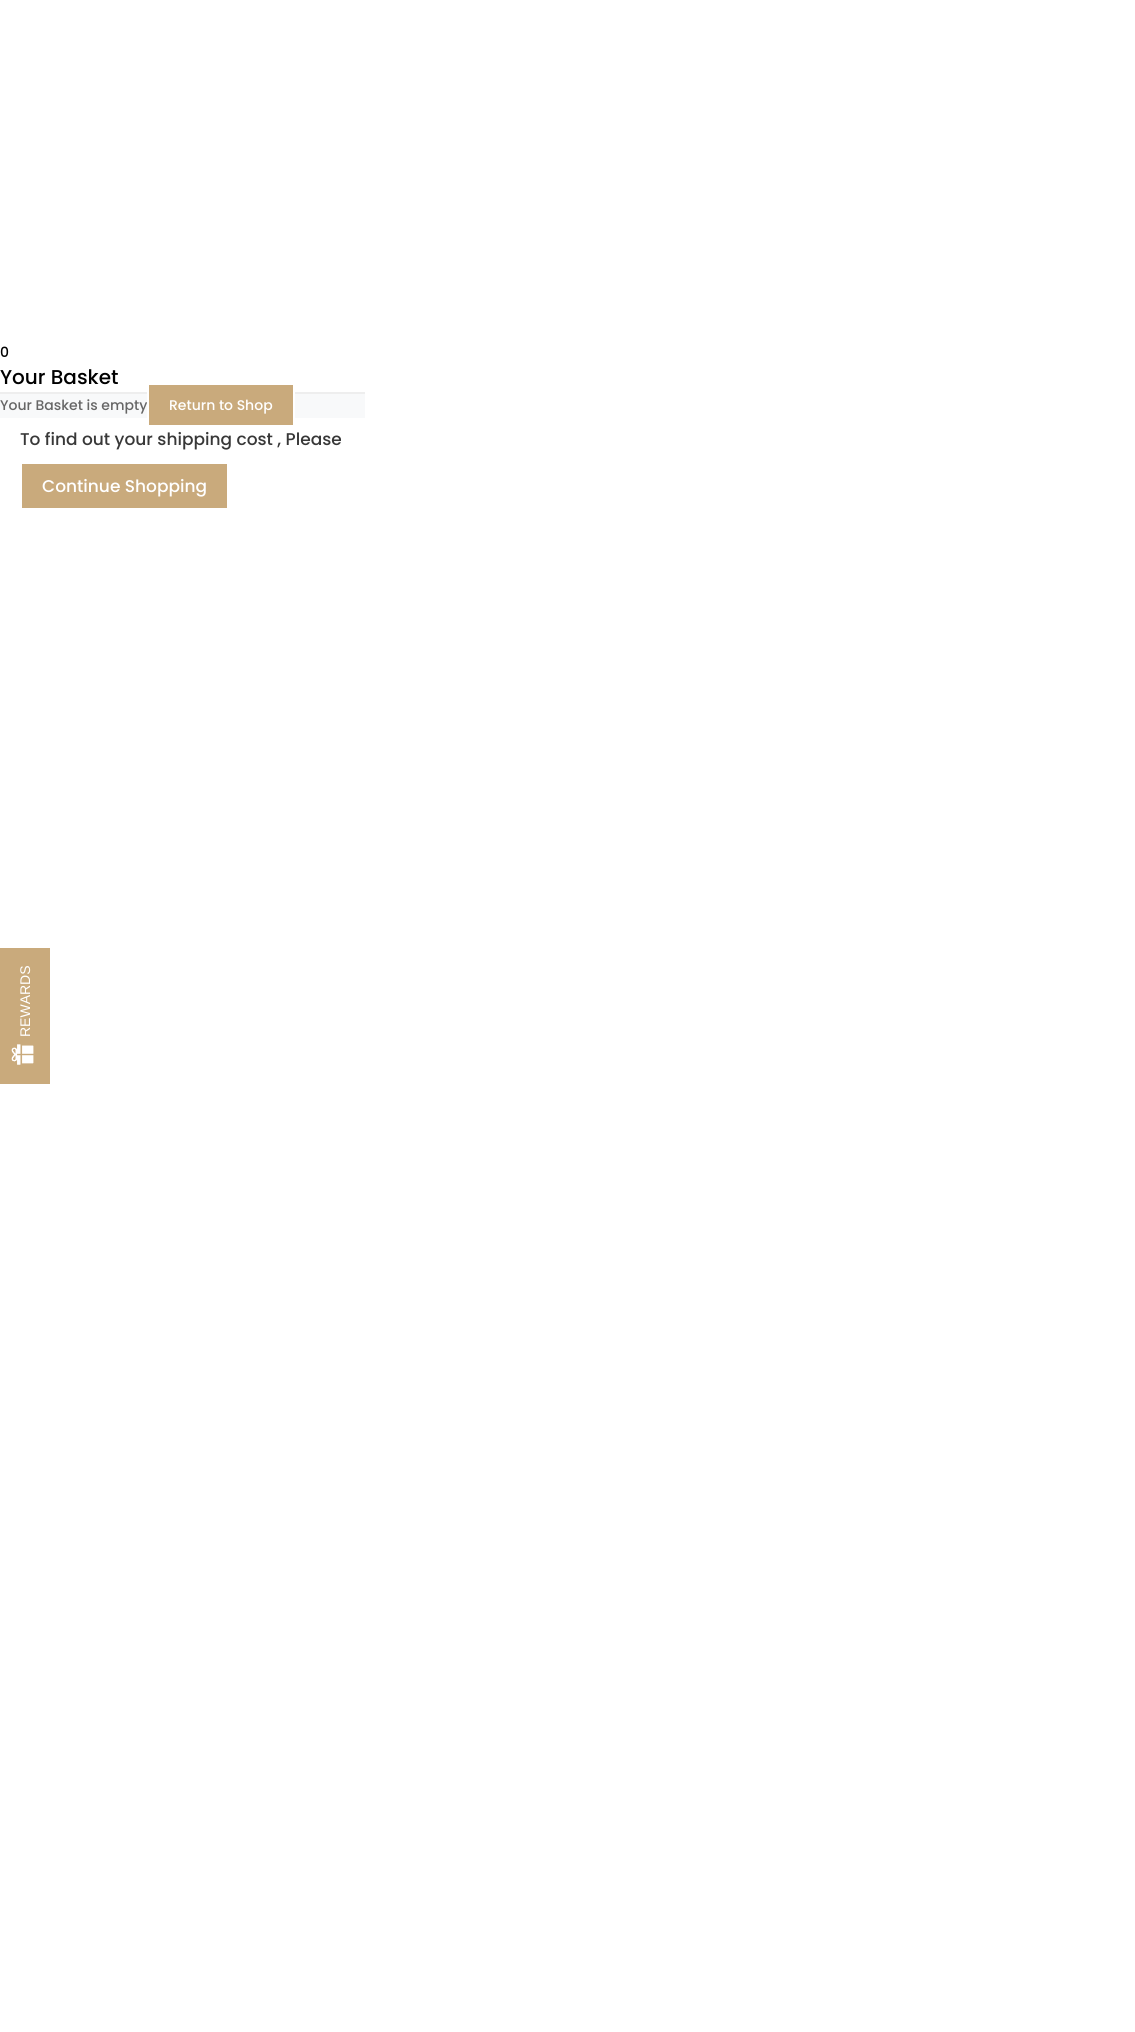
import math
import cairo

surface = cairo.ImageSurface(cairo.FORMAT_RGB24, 1135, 2032)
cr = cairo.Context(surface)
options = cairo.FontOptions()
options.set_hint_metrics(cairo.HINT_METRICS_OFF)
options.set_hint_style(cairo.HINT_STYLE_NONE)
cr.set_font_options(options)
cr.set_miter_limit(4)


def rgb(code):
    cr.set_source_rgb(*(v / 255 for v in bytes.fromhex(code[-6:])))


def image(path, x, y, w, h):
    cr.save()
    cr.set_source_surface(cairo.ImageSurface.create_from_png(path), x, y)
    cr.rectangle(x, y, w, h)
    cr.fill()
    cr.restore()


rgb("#ffffff")
cr.paint()
for x, y, w, h, color in [
    (0, 392, 365, 2, "#eeeeee"),
    (0, 394, 365, 24, "#f8f9fa"),
    (22, 464, 205, 44, "#c9aa7c"),
    (0, 948, 50, 136, "#c9aa7c"),
]:
    rgb(color)
    cr.rectangle(x, y, w, h)
    cr.fill()
image("img/1.png", 11, 1044, 23, 21)
cr.select_font_face("Poppins Medium")
cr.set_font_size(14)
rgb("#000000")
cr.move_to(0, 357)
cr.show_text("0")
cr.set_font_size(20)
cr.move_to(0, 384)
cr.show_text("Your Basket")
cr.set_font_size(14)
rgb("#666666")
cr.move_to(0, 410)
cr.show_text("Your Basket is empty")
rgb("#c9aa7c")
cr.rectangle(148, 384, 146, 42)
cr.fill_preserve()
rgb("#ffffff")
cr.stroke()
cr.move_to(169, 410)
cr.show_text("Return to Shop")
cr.set_font_size(17)
rgb("#383838")
cr.move_to(20, 445)
cr.show_text("To find out your shipping cost , Please")
rgb("#ffffff")
cr.move_to(42, 492)
cr.show_text("Continue Shopping")
cr.select_font_face("Liberation Sans")
cr.set_font_size(14)
cr.save()
cr.translate(30, 1037)
cr.rotate(-90 * math.pi / 180)
cr.move_to(0, 0)
cr.show_text("REWARDS")
cr.restore()
surface.write_to_png("page.png")
